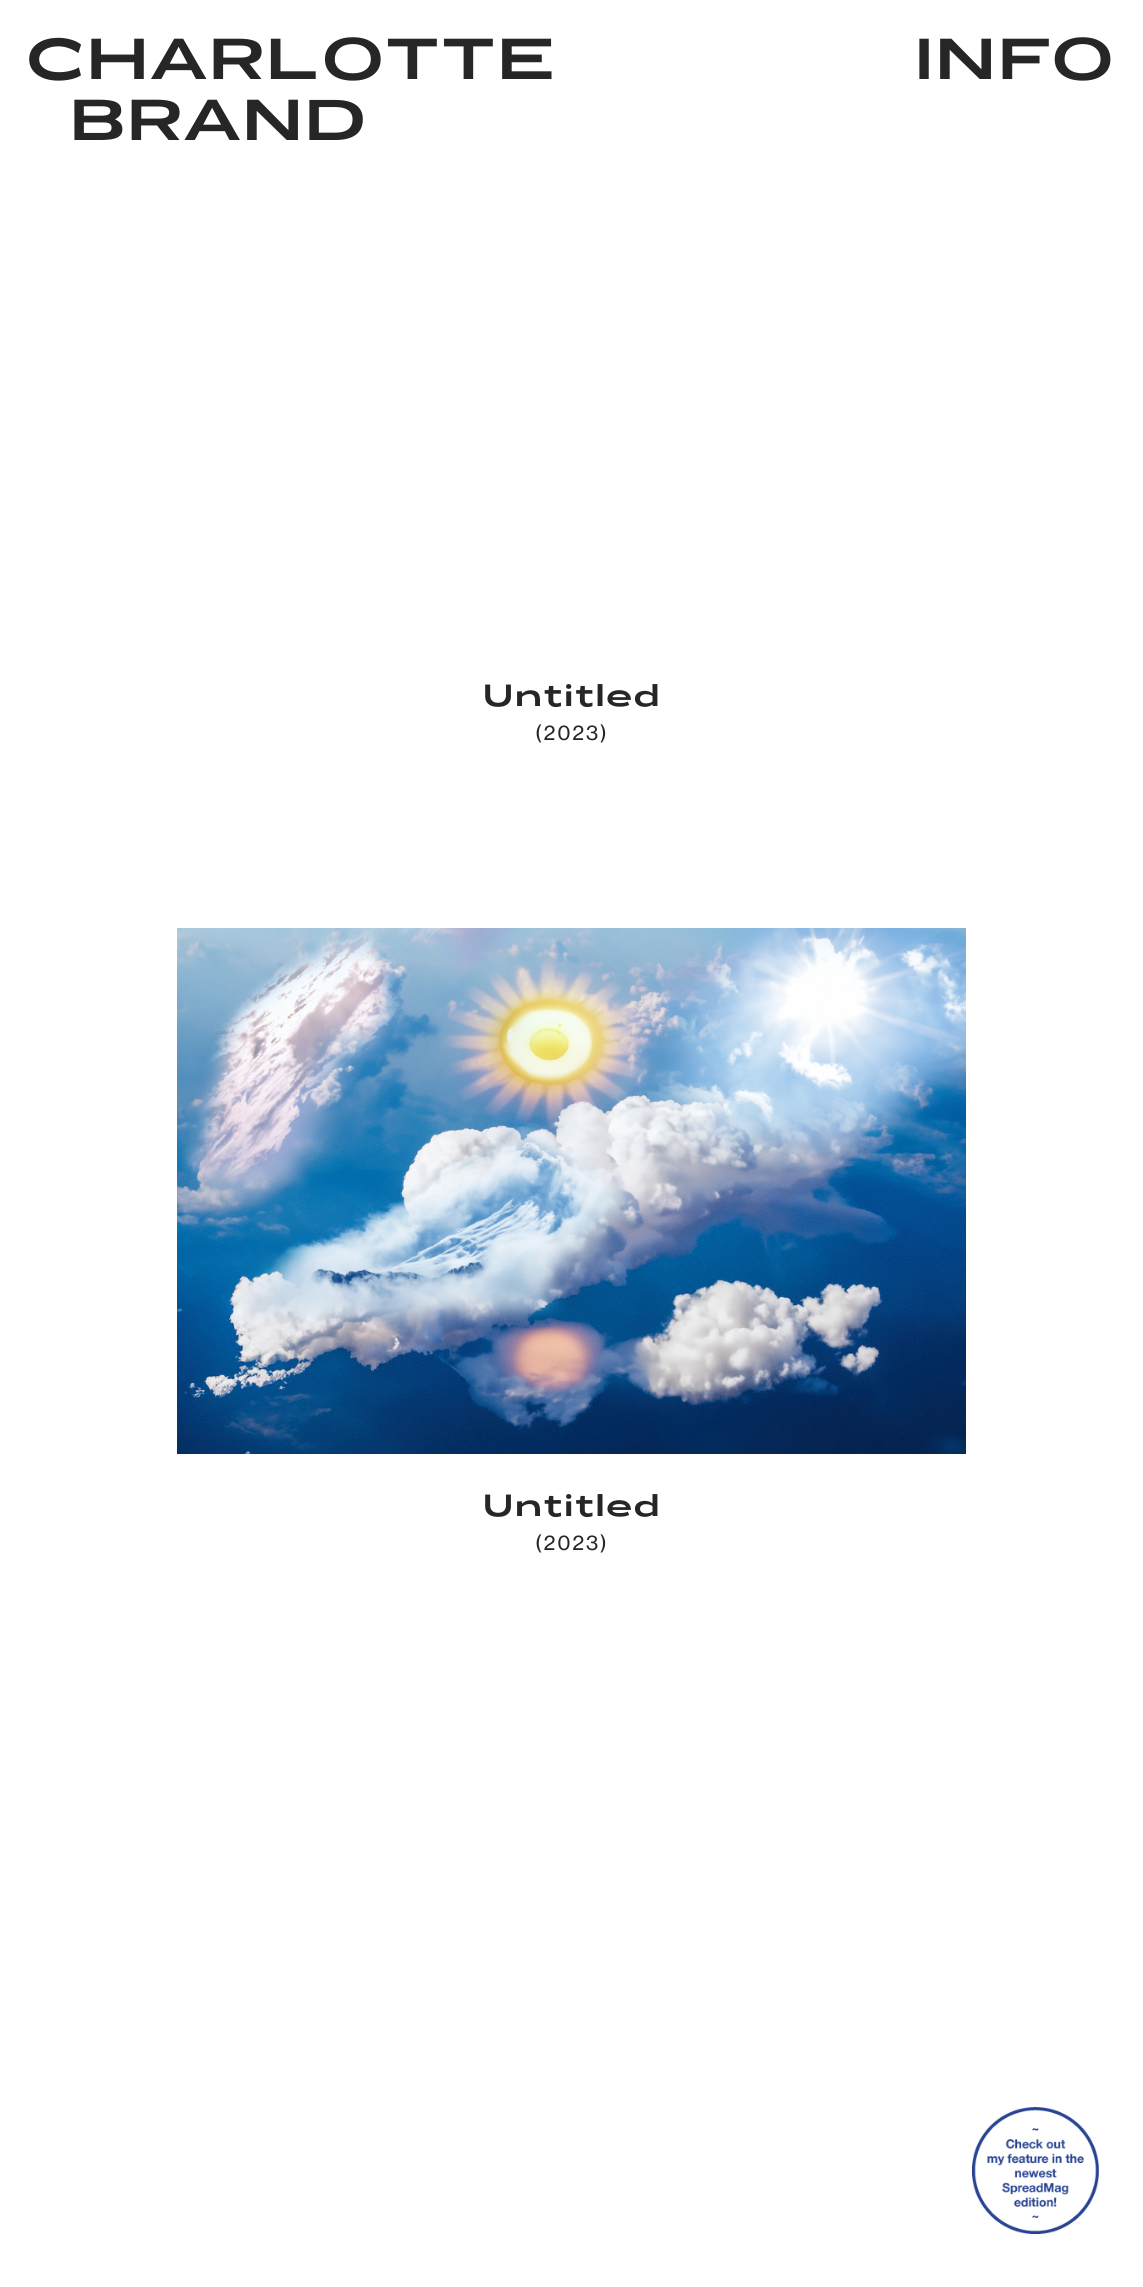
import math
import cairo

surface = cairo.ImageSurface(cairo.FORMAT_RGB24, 1143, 2287)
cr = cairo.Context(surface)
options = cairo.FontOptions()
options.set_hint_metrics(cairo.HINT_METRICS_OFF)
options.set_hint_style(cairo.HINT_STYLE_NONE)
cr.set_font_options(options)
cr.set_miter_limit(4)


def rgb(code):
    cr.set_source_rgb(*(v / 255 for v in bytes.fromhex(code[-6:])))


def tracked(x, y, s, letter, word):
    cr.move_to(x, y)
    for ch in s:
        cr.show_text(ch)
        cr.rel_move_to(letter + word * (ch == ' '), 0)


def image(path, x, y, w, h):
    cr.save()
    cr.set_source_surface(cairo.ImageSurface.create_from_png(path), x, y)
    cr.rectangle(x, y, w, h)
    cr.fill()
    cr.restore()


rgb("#ffffff")
cr.paint()
image("img/1.png", 972, 2107, 127, 127)
image("img/2.png", 177, 928, 789, 526)
cr.select_font_face("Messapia", cairo.FONT_SLANT_NORMAL, cairo.FONT_WEIGHT_BOLD)
cr.set_font_size(54.9)
rgb("#262626")
for x, y, s in [
    (27, 79, "CHARLOTTE"),
    (70, 140, "BRAND"),
    (915, 79, "INFO"),
]:
    tracked(x, y, s, 2.75, 0)
cr.set_font_size(29.25)
tracked(483, 706, "Untitled", 1.5, 0)
cr.select_font_face("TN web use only")
cr.set_font_size(20)
tracked(535, 740, "(2023)", 1.75, 0)
cr.select_font_face("Messapia", cairo.FONT_SLANT_NORMAL, cairo.FONT_WEIGHT_BOLD)
cr.set_font_size(29.25)
tracked(483, 1516, "Untitled", 1.5, 0)
cr.select_font_face("TN web use only")
cr.set_font_size(20)
tracked(535, 1550, "(2023)", 1.75, 0)
surface.write_to_png("page.png")
